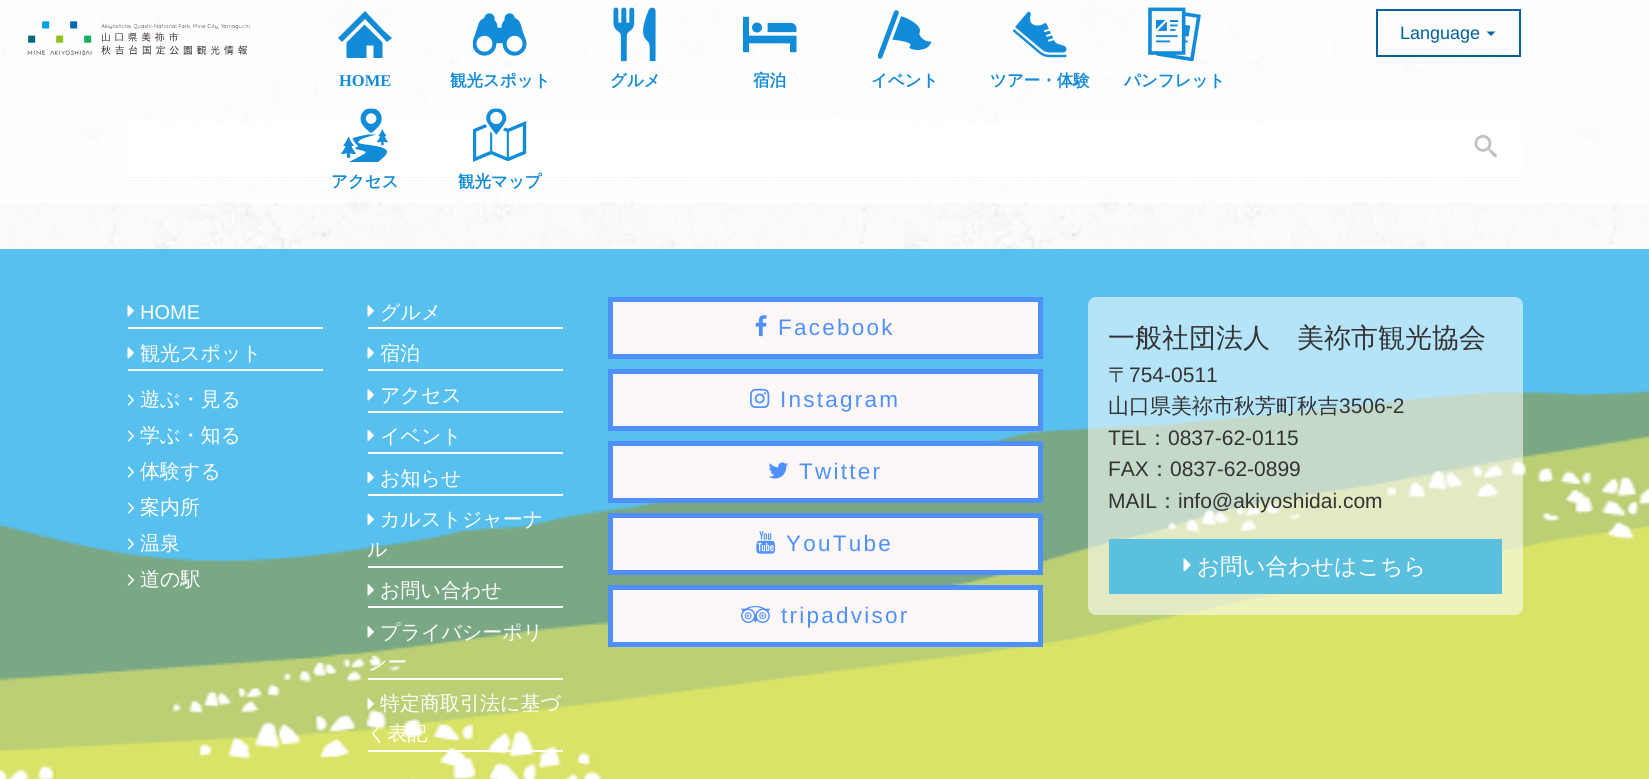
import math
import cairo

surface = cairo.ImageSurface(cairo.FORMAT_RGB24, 1649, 779)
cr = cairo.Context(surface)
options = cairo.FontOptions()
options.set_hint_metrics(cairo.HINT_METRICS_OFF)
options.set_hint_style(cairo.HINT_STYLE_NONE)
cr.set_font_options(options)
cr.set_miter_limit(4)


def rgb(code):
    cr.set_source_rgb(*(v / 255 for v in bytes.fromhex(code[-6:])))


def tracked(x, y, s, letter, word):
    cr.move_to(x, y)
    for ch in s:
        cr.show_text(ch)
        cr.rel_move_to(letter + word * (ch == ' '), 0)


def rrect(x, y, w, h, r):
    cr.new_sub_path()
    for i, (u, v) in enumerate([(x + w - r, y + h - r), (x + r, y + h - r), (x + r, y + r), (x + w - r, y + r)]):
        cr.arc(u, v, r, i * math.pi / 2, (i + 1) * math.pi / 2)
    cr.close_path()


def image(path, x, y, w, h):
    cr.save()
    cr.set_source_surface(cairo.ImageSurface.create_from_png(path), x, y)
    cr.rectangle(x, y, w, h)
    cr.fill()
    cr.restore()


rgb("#ffffff")
cr.paint()
image("img/1.png", 0, 0, 1649, 249)
rgb("#ffffff")
cr.rectangle(128, 122, 1395, 57)
cr.fill()
rgb("#dddddd")
cr.new_path()
cr.move_to(1522, 178)
cr.line_to(128, 178)
cr.line_to(129, 177)
cr.line_to(1521, 177)
cr.close_path()
cr.fill()
image("img/11.png", 1474, 134, 23, 24)
cr.set_source_rgba(1, 1, 1, 0.7)
cr.rectangle(0, 0, 1649, 203)
cr.fill()
image("img/2.png", 27, 21, 223, 35)
cr.rectangle(1377, 10, 143, 46)
rgb("#00619e")
cr.stroke()
cr.new_path()
cr.move_to(1486.5, 31.5)
cr.line_to(1495.5, 31.5)
cr.line_to(1491, 36)
cr.close_path()
cr.fill()
rgb("#128bd8")
cr.new_path()
cr.move_to(384, 31)
cr.line_to(365, 11)
cr.line_to(338, 38)
cr.line_to(342, 42)
cr.line_to(365, 19)
cr.line_to(387, 42)
cr.line_to(392, 38)
cr.close_path()
cr.fill()
cr.new_path()
cr.move_to(346.5, 42.5)
cr.line_to(346.5, 58)
cr.line_to(366.5, 58)
cr.line_to(366.5, 45.5)
cr.line_to(373.5, 45.5)
cr.line_to(373.5, 58)
cr.line_to(382.5, 58)
cr.line_to(382.5, 42.5)
cr.line_to(364.5, 24.5)
cr.close_path()
cr.fill()
image("img/3.png", 473, 13, 54, 43)
image("img/4.png", 613, 7, 43, 55)
image("img/5.png", 743, 16, 54, 37)
image("img/6.png", 878, 10, 54, 49)
image("img/7.png", 1013, 11, 54, 47)
image("img/8.png", 1148, 7, 53, 55)
image("img/9.png", 340, 108, 49, 54)
image("img/10.png", 473, 108, 54, 54)
image("img/12.png", 0, 249, 1649, 530)
rgb("#ffffff")
cr.rectangle(128, 327, 195, 2)
cr.fill()
image("img/13.png", 127, 305, 7, 12)
cr.rectangle(128, 369, 195, 2)
cr.fill()
image("img/13.png", 127, 347, 7, 12)
image("img/14.png", 127, 394, 8, 12)
image("img/14.png", 127, 430, 8, 12)
image("img/14.png", 127, 466, 8, 12)
image("img/14.png", 127, 502, 8, 12)
image("img/14.png", 127, 538, 8, 12)
image("img/15.png", 127, 574, 8, 12)
cr.rectangle(368, 327, 195, 2)
cr.fill()
image("img/13.png", 367, 305, 7, 12)
cr.rectangle(368, 369, 195, 2)
cr.fill()
image("img/13.png", 367, 347, 7, 12)
cr.rectangle(368, 411, 195, 2)
cr.fill()
image("img/13.png", 367, 389, 7, 12)
cr.rectangle(368, 452, 195, 2)
cr.fill()
image("img/16.png", 367, 429, 7, 12)
cr.rectangle(368, 494, 195, 2)
cr.fill()
image("img/16.png", 367, 471, 7, 12)
cr.rectangle(368, 566, 195, 2)
cr.fill()
image("img/16.png", 367, 513, 7, 12)
cr.rectangle(368, 606, 195, 2)
cr.fill()
image("img/17.png", 367, 584, 7, 12)
cr.rectangle(368, 678, 195, 2)
cr.fill()
image("img/17.png", 367, 626, 7, 12)
cr.rectangle(368, 750, 195, 2)
cr.fill()
image("img/18.png", 367, 698, 7, 12)
rgb("#fdf7f7")
cr.rectangle(610.5, 299.5, 430, 57)
cr.fill_preserve()
rgb("#4d90fe")
cr.set_line_width(5)
cr.stroke()
image("img/19.png", 755, 315, 12, 22)
rgb("#fdf7f7")
cr.rectangle(610.5, 371.5, 430, 57)
cr.fill_preserve()
rgb("#4d90fe")
cr.stroke()
image("img/20.png", 750, 388, 20, 21)
rgb("#fdf7f7")
cr.rectangle(610.5, 443.5, 430, 57)
cr.fill_preserve()
rgb("#4d90fe")
cr.stroke()
image("img/21.png", 768, 462, 21, 17)
rgb("#fdf7f7")
cr.rectangle(610.5, 515.5, 430, 57)
cr.fill_preserve()
rgb("#4d90fe")
cr.stroke()
image("img/22.png", 756, 531, 19, 23)
rgb("#fdf7f7")
cr.rectangle(610.5, 587.5, 430, 57)
cr.fill_preserve()
rgb("#4d90fe")
cr.stroke()
image("img/23.png", 741, 606, 29, 17)
cr.set_source_rgba(1, 1, 1, 0.56)
rrect(1088, 297, 435, 318, 8)
cr.fill()
rgb("#5bc0de")
cr.rectangle(1109, 539, 393, 55)
cr.fill()
image("img/24.png", 1183, 558, 8, 14)
cr.select_font_face("Liberation Sans")
cr.set_font_size(18)
rgb("#00619e")
cr.move_to(1400, 39)
cr.show_text("Language")
cr.select_font_face("Liberation Serif", cairo.FONT_SLANT_NORMAL, cairo.FONT_WEIGHT_BOLD)
cr.set_font_size(16.5)
rgb("#128bd8")
cr.save()
cr.translate(339, 86)
cr.rotate(0.1 * math.pi / 180)
cr.move_to(0, 0)
cr.show_text("HOME")
cr.restore()
cr.select_font_face("WenQuanYi Zen Hei", cairo.FONT_SLANT_NORMAL, cairo.FONT_WEIGHT_BOLD)
cr.save()
cr.translate(450, 86)
cr.rotate(0.1 * math.pi / 180)
cr.move_to(0, 0)
cr.show_text("観光スポット")
cr.restore()
cr.save()
cr.translate(610, 86)
cr.rotate(0.1 * math.pi / 180)
cr.move_to(0, 0)
cr.show_text("グルメ")
cr.restore()
cr.save()
cr.translate(753, 86)
cr.rotate(0.1 * math.pi / 180)
cr.move_to(0, 0)
cr.show_text("宿泊")
cr.restore()
cr.save()
cr.translate(871, 86)
cr.rotate(0.1 * math.pi / 180)
cr.move_to(0, 0)
cr.show_text("イベント")
cr.restore()
cr.save()
cr.translate(990, 86)
cr.rotate(0.1 * math.pi / 180)
cr.move_to(0, 0)
cr.show_text("ツアー・体験")
cr.restore()
cr.save()
cr.translate(1124, 86)
cr.rotate(0.1 * math.pi / 180)
cr.move_to(0, 0)
cr.show_text("パンフレット")
cr.restore()
cr.save()
cr.translate(331, 187)
cr.rotate(0.1 * math.pi / 180)
cr.move_to(0, 0)
cr.show_text("アクセス")
cr.restore()
cr.save()
cr.translate(458, 187)
cr.rotate(0.1 * math.pi / 180)
cr.move_to(0, 0)
cr.show_text("観光マップ")
cr.restore()
cr.select_font_face("Liberation Sans")
cr.set_font_size(20)
rgb("#ffffff")
cr.move_to(140, 319)
cr.show_text("HOME")
cr.select_font_face("WenQuanYi Zen Hei Medium")
for x, y, s in [
    (140, 360, "観光スポット"),
    (140, 406, "遊ぶ・見る"),
    (140, 442, "学ぶ・知る"),
    (140, 478, "体験する"),
    (140, 514, "案内所"),
    (140, 550, "温泉"),
    (140, 586, "道の駅"),
    (380, 319, "グルメ"),
    (380, 360, "宿泊"),
    (380, 402, "アクセス"),
    (380, 443, "イベント"),
    (380, 485, "お知らせ"),
    (380, 526, "カルストジャーナ"),
    (367, 556, "ル"),
    (380, 597, "お問い合わせ"),
    (380, 639, "プライバシーポリ"),
    (367, 669, "シー"),
    (380, 710, "特定商取引法に基づ"),
    (367, 740, "く表記"),
]:
    cr.move_to(x, y)
    cr.show_text(s)
cr.select_font_face("Liberation Sans")
cr.set_font_size(22.5)
rgb("#4d90fe")
for x, y, s in [
    (778, 335, "Facebook"),
    (780, 407, "Instagram"),
    (799, 479, "Twitter"),
    (786, 551, "YouTube"),
    (781, 623, "tripadvisor"),
]:
    tracked(x, y, s, 2.25, 0)
cr.select_font_face("WenQuanYi Zen Hei Medium")
cr.set_font_size(27)
rgb("#333333")
cr.move_to(1108, 347)
cr.show_text("一般社団法人　美祢市観光協会")
cr.set_font_size(21)
cr.move_to(1108, 382)
cr.show_text("〒")
cr.select_font_face("Liberation Sans")
cr.move_to(1129, 382)
cr.show_text("754-0511")
cr.select_font_face("WenQuanYi Zen Hei Medium")
cr.move_to(1108, 413)
cr.show_text("山口県美祢市秋芳町秋吉")
cr.select_font_face("Liberation Sans")
cr.move_to(1339, 413)
cr.show_text("3506-2")
cr.move_to(1108, 445)
cr.show_text("TEL")
cr.select_font_face("WenQuanYi Zen Hei Medium")
cr.move_to(1147, 445)
cr.show_text("：")
cr.select_font_face("Liberation Sans")
cr.move_to(1168, 445)
cr.show_text("0837-62-0115")
cr.move_to(1108, 476)
cr.show_text("FAX")
cr.select_font_face("WenQuanYi Zen Hei Medium")
cr.move_to(1149, 476)
cr.show_text("：")
cr.select_font_face("Liberation Sans")
cr.move_to(1170, 476)
cr.show_text("0837-62-0899")
cr.move_to(1108, 508)
cr.show_text("MAIL")
cr.select_font_face("WenQuanYi Zen Hei Medium")
cr.move_to(1157, 508)
cr.show_text("：")
cr.select_font_face("Liberation Sans")
cr.move_to(1178, 508)
cr.show_text("info@akiyoshidai.com")
cr.select_font_face("WenQuanYi Zen Hei Medium")
cr.set_font_size(22.5)
rgb("#ffffff")
cr.move_to(1197, 574)
cr.show_text("お問い合わせはこちら")
surface.write_to_png("page.png")
